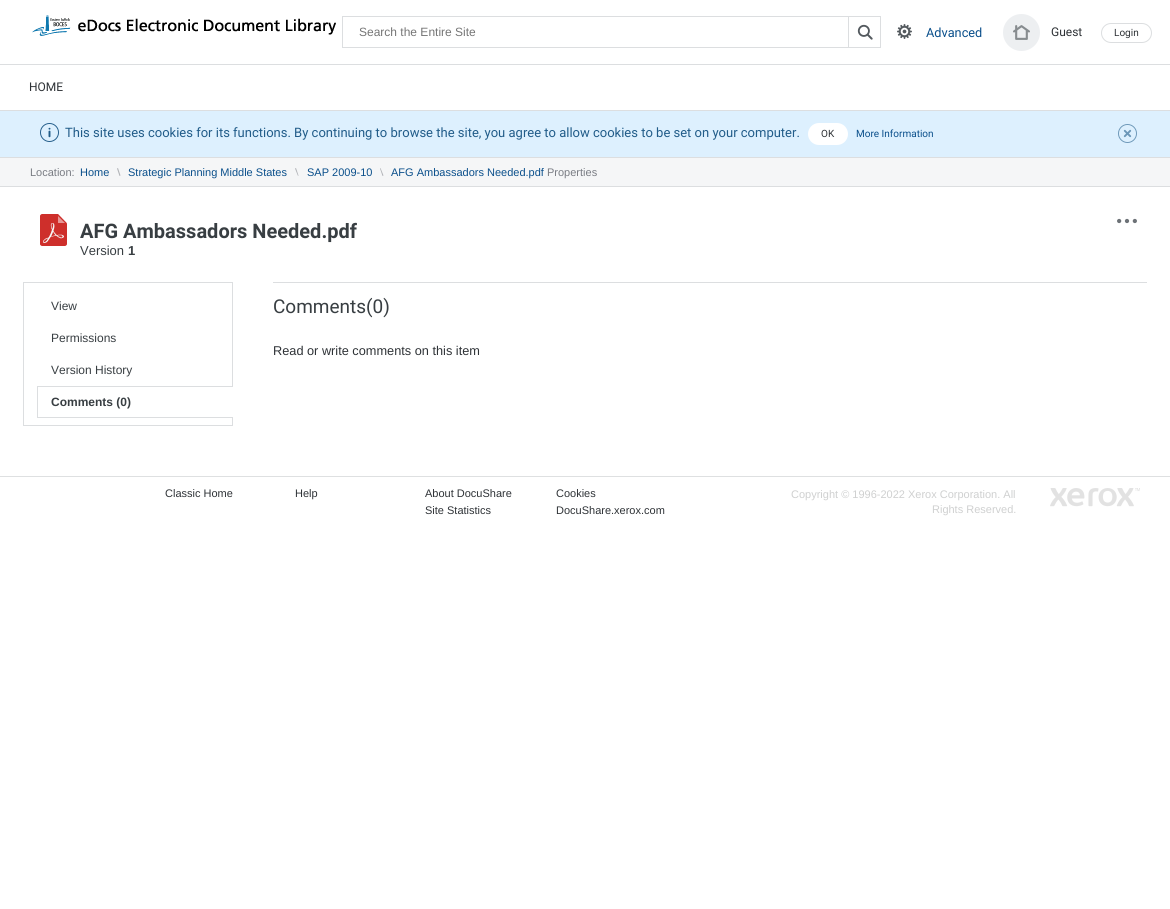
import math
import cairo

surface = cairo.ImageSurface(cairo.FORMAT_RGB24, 1170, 909)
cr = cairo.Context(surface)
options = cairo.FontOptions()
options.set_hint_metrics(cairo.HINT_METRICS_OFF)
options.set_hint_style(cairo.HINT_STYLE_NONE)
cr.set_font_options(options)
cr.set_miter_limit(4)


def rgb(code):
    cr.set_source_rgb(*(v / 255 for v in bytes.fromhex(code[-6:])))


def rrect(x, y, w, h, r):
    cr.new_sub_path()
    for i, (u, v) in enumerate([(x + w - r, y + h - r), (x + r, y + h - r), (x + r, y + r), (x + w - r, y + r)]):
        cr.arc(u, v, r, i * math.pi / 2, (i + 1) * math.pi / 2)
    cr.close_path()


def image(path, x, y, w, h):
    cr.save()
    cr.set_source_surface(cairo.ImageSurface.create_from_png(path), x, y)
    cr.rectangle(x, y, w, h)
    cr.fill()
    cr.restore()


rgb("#ffffff")
cr.paint()
image("img/1.png", 32, 15, 304, 21)
cr.rectangle(342.5, 16.5, 538, 31)
rgb("#dcdee0")
cr.set_line_width(1)
cr.stroke()
cr.rectangle(848.5, 16.5, 32, 31)
cr.stroke()
image("img/2.png", 857, 24, 16, 16)
image("img/3.png", 897, 24, 15, 15)
rgb("#edeff1")
cr.arc(1021.5, 32.5, 18.5, 0, 2 * math.pi)
cr.fill()
image("img/4.png", 1013, 25, 17, 15)
rrect(1101.5, 23.5, 50, 19, 9.5)
rgb("#dcdee0")
cr.stroke()
for x, y, w, h, color in [
    (0, 64, 1170, 1, "#dcdee0"),
    (0, 110, 1170, 1, "#dcdee0"),
    (0, 111, 1170, 46, "#ddf0fe"),
    (0, 157, 1170, 1, "#dcdee0"),
]:
    rgb(color)
    cr.rectangle(x, y, w, h)
    cr.fill()
image("img/5.png", 40, 123, 19, 19)
rgb("#ffffff")
rrect(808, 123, 40, 22, 11)
cr.fill()
image("img/6.png", 1118, 124, 19, 19)
rgb("#f5f6f7")
cr.rectangle(0, 158, 1170, 28)
cr.fill()
rgb("#dcdee0")
cr.rectangle(0, 186, 1170, 1)
cr.fill()
rgb("#b1b3b7")
cr.new_path()
cr.move_to(117, 168.5)
cr.line_to(118, 168)
cr.line_to(120.5, 175.5)
cr.line_to(119.5, 176)
cr.close_path()
cr.fill()
cr.new_path()
cr.move_to(295, 168.5)
cr.line_to(296, 168)
cr.line_to(298.5, 175.5)
cr.line_to(298, 176)
cr.close_path()
cr.fill()
cr.new_path()
cr.move_to(380, 168.5)
cr.line_to(380.5, 168)
cr.line_to(383.5, 175.5)
cr.line_to(382.5, 176)
cr.close_path()
cr.fill()
image("img/7.png", 40, 214, 27, 32)
image("img/8.png", 1117, 218, 20, 6)
cr.rectangle(23.5, 282.5, 209, 143)
rgb("#dcdee0")
cr.stroke()
for x, y, w, h, color in [
    (232, 387, 1, 30, "#ffffff"),
    (37, 386, 196, 1, "#dcdee0"),
    (37, 417, 196, 1, "#dcdee0"),
    (37, 386, 1, 32, "#dcdee0"),
    (273, 282, 874, 1, "#dcdee0"),
    (0, 476, 1170, 1, "#dee0e1"),
]:
    rgb(color)
    cr.rectangle(x, y, w, h)
    cr.fill()
image("img/9.png", 1050, 488, 90, 19)
cr.select_font_face("Liberation Sans")
cr.set_font_size(12)
rgb("#757575")
cr.move_to(359, 36)
cr.show_text("Search the Entire Site")
cr.select_font_face("Roboto")
cr.set_font_size(12.75)
rgb("#0a4f8b")
cr.move_to(926, 37)
cr.show_text("Advanced")
cr.set_font_size(12)
rgb("#2e3236")
cr.move_to(1051, 36)
cr.show_text("Guest")
cr.set_font_size(10)
cr.move_to(1114, 36)
cr.show_text("Login")
cr.set_font_size(12)
cr.move_to(29, 91)
cr.show_text("HOME")
cr.set_font_size(13)
rgb("#215c89")
cr.move_to(65, 137)
cr.show_text("This site uses cookies for its functions. By continuing to browse the site, you agree to allow cookies to be set on your computer.")
cr.set_font_size(10)
rgb("#2e3236")
cr.move_to(821, 137)
cr.show_text("OK")
rgb("#0a4f8b")
cr.move_to(856, 137)
cr.show_text("More Information")
cr.select_font_face("Liberation Sans")
cr.set_font_size(11)
rgb("#797c83")
cr.move_to(30, 176)
cr.show_text("Location:")
rgb("#0a4f8b")
for x, y, s in [
    (80, 176, "Home"),
    (128, 176, "Strategic Planning Middle States"),
    (307, 176, "SAP 2009-10"),
    (391, 176, "AFG Ambassadors Needed.pdf"),
]:
    cr.move_to(x, y)
    cr.show_text(s)
rgb("#797c83")
cr.move_to(547, 176)
cr.show_text("Properties")
cr.select_font_face("Roboto", cairo.FONT_SLANT_NORMAL, cairo.FONT_WEIGHT_BOLD)
cr.set_font_size(20)
rgb("#383e42")
cr.move_to(80, 238)
cr.show_text("AFG Ambassadors Needed.pdf")
cr.select_font_face("Liberation Sans")
cr.set_font_size(13)
cr.move_to(80, 255)
cr.show_text("Version")
cr.select_font_face("Liberation Sans", cairo.FONT_SLANT_NORMAL, cairo.FONT_WEIGHT_BOLD)
cr.move_to(128, 255)
cr.show_text("1")
cr.select_font_face("Liberation Sans")
cr.set_font_size(12)
for x, y, s in [
    (51, 310, "View"),
    (51, 342, "Permissions"),
    (51, 374, "Version History"),
]:
    cr.move_to(x, y)
    cr.show_text(s)
cr.select_font_face("Liberation Sans", cairo.FONT_SLANT_NORMAL, cairo.FONT_WEIGHT_BOLD)
cr.move_to(51, 406)
cr.show_text("Comments (0)")
cr.select_font_face("Roboto")
cr.set_font_size(19)
cr.move_to(273, 313)
cr.show_text("Comments(0)")
cr.select_font_face("Liberation Sans")
cr.set_font_size(12.75)
rgb("#2e3236")
cr.move_to(273, 355)
cr.show_text("Read or write comments on this item")
cr.set_font_size(11)
for x, y, s in [
    (165, 497, "Classic Home"),
    (295, 497, "Help"),
    (425, 497, "About DocuShare"),
    (425, 514, "Site Statistics"),
    (556, 497, "Cookies"),
    (556, 514, "DocuShare.xerox.com"),
]:
    cr.move_to(x, y)
    cr.show_text(s)
rgb("#cfd0d0")
cr.move_to(791, 498)
cr.show_text("Copyright © 1996-2022 Xerox Corporation. All")
cr.move_to(932, 513)
cr.show_text("Rights Reserved.")
surface.write_to_png("page.png")
